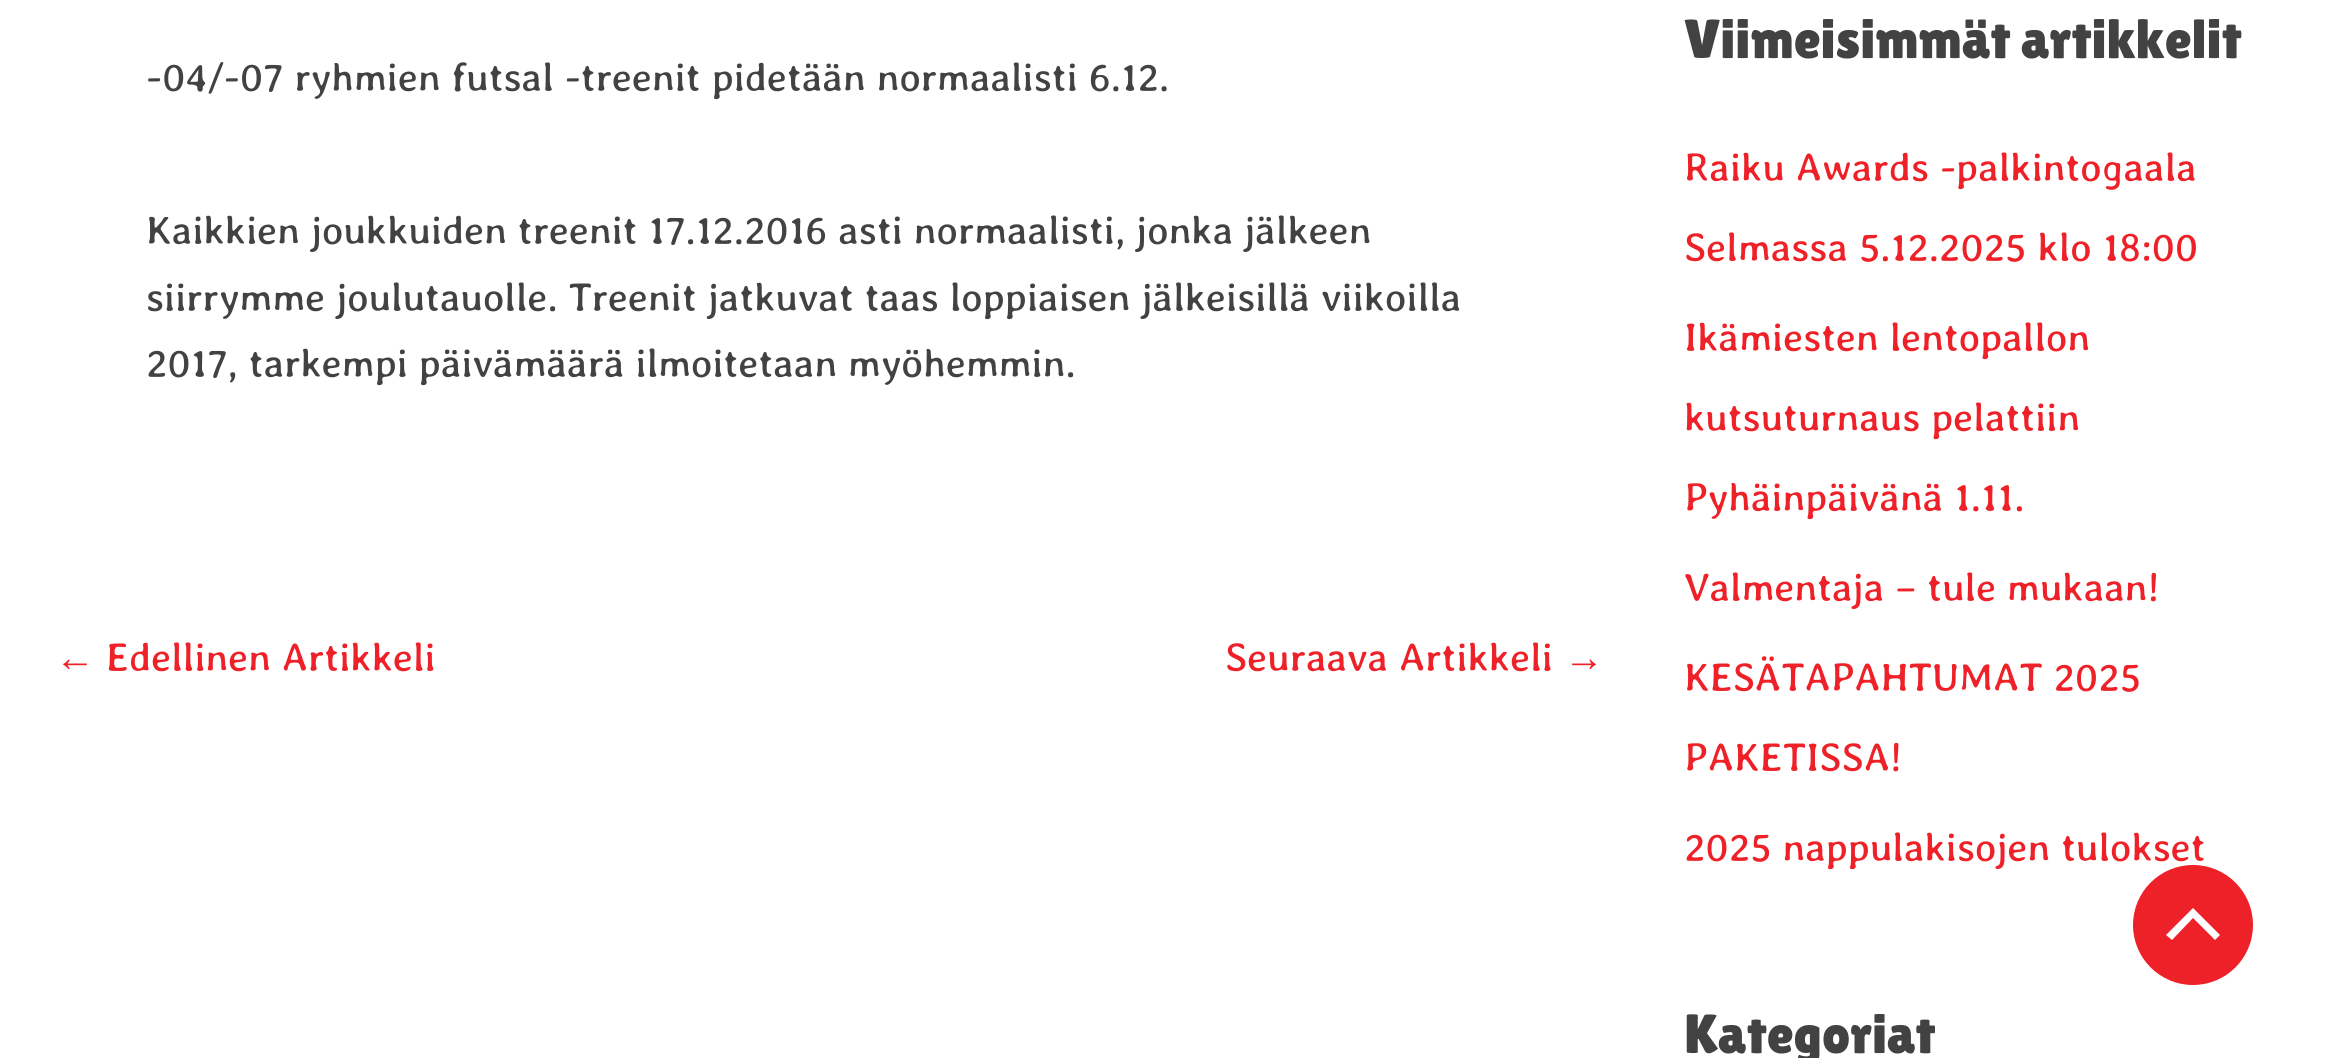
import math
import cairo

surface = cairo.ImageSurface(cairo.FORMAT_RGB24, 2327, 1058)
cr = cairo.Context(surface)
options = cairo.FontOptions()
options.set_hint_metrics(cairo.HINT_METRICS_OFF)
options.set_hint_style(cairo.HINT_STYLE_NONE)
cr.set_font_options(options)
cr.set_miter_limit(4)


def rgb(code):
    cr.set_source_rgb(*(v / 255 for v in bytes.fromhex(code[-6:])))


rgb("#ffffff")
cr.paint()
rgb("#ee2128")
cr.arc(2193, 925, 60, 0, 2 * math.pi)
cr.fill()
rgb("#ffffff")
cr.new_path()
cr.move_to(2220, 935)
cr.line_to(2193, 908)
cr.line_to(2166, 935)
cr.line_to(2172, 940)
cr.line_to(2193, 918)
cr.line_to(2215, 940)
cr.close_path()
cr.fill()
cr.select_font_face("Averia Libre")
cr.set_font_size(40)
rgb("#424242")
for x, y, s in [
    (146, 91, "-04/-07 ryhmien futsal -treenit pidetään normaalisti 6.12."),
    (146, 244, "Kaikkien joukkuiden treenit 17.12.2016 asti normaalisti, jonka jälkeen"),
    (146, 311, "siirrymme joulutauolle. Treenit jatkuvat taas loppiaisen jälkeisillä viikoilla"),
    (146, 377, "2017, tarkempi päivämäärä ilmoitetaan myöhemmin."),
]:
    cr.move_to(x, y)
    cr.show_text(s)
cr.select_font_face("Liberation Serif")
rgb("#ee2128")
cr.move_to(55, 671)
cr.show_text("←")
cr.select_font_face("Averia Libre")
cr.move_to(106, 671)
cr.show_text("Edellinen Artikkeli")
cr.move_to(1225, 671)
cr.show_text("Seuraava Artikkeli")
cr.select_font_face("Liberation Serif")
cr.move_to(1564, 671)
cr.show_text("→")
cr.select_font_face("Lilita One")
cr.set_font_size(55)
rgb("#424242")
cr.move_to(1684, 58)
cr.show_text("Viimeisimmät artikkelit")
cr.select_font_face("Averia Libre")
cr.set_font_size(40)
rgb("#ee2128")
for x, y, s in [
    (1684, 181, "Raiku Awards -palkintogaala"),
    (1684, 261, "Selmassa 5.12.2025 klo 18:00"),
    (1684, 351, "Ikämiesten lentopallon"),
    (1684, 431, "kutsuturnaus pelattiin"),
    (1684, 511, "Pyhäinpäivänä 1.11."),
    (1684, 601, "Valmentaja – tule mukaan!"),
    (1684, 691, "KESÄTAPAHTUMAT 2025"),
    (1684, 771, "PAKETISSA!"),
    (1684, 861, "2025 nappulakisojen tulokset"),
]:
    cr.move_to(x, y)
    cr.show_text(s)
cr.select_font_face("Lilita One")
cr.set_font_size(55)
rgb("#424242")
cr.move_to(1684, 1053)
cr.show_text("Kategoriat")
surface.write_to_png("page.png")
